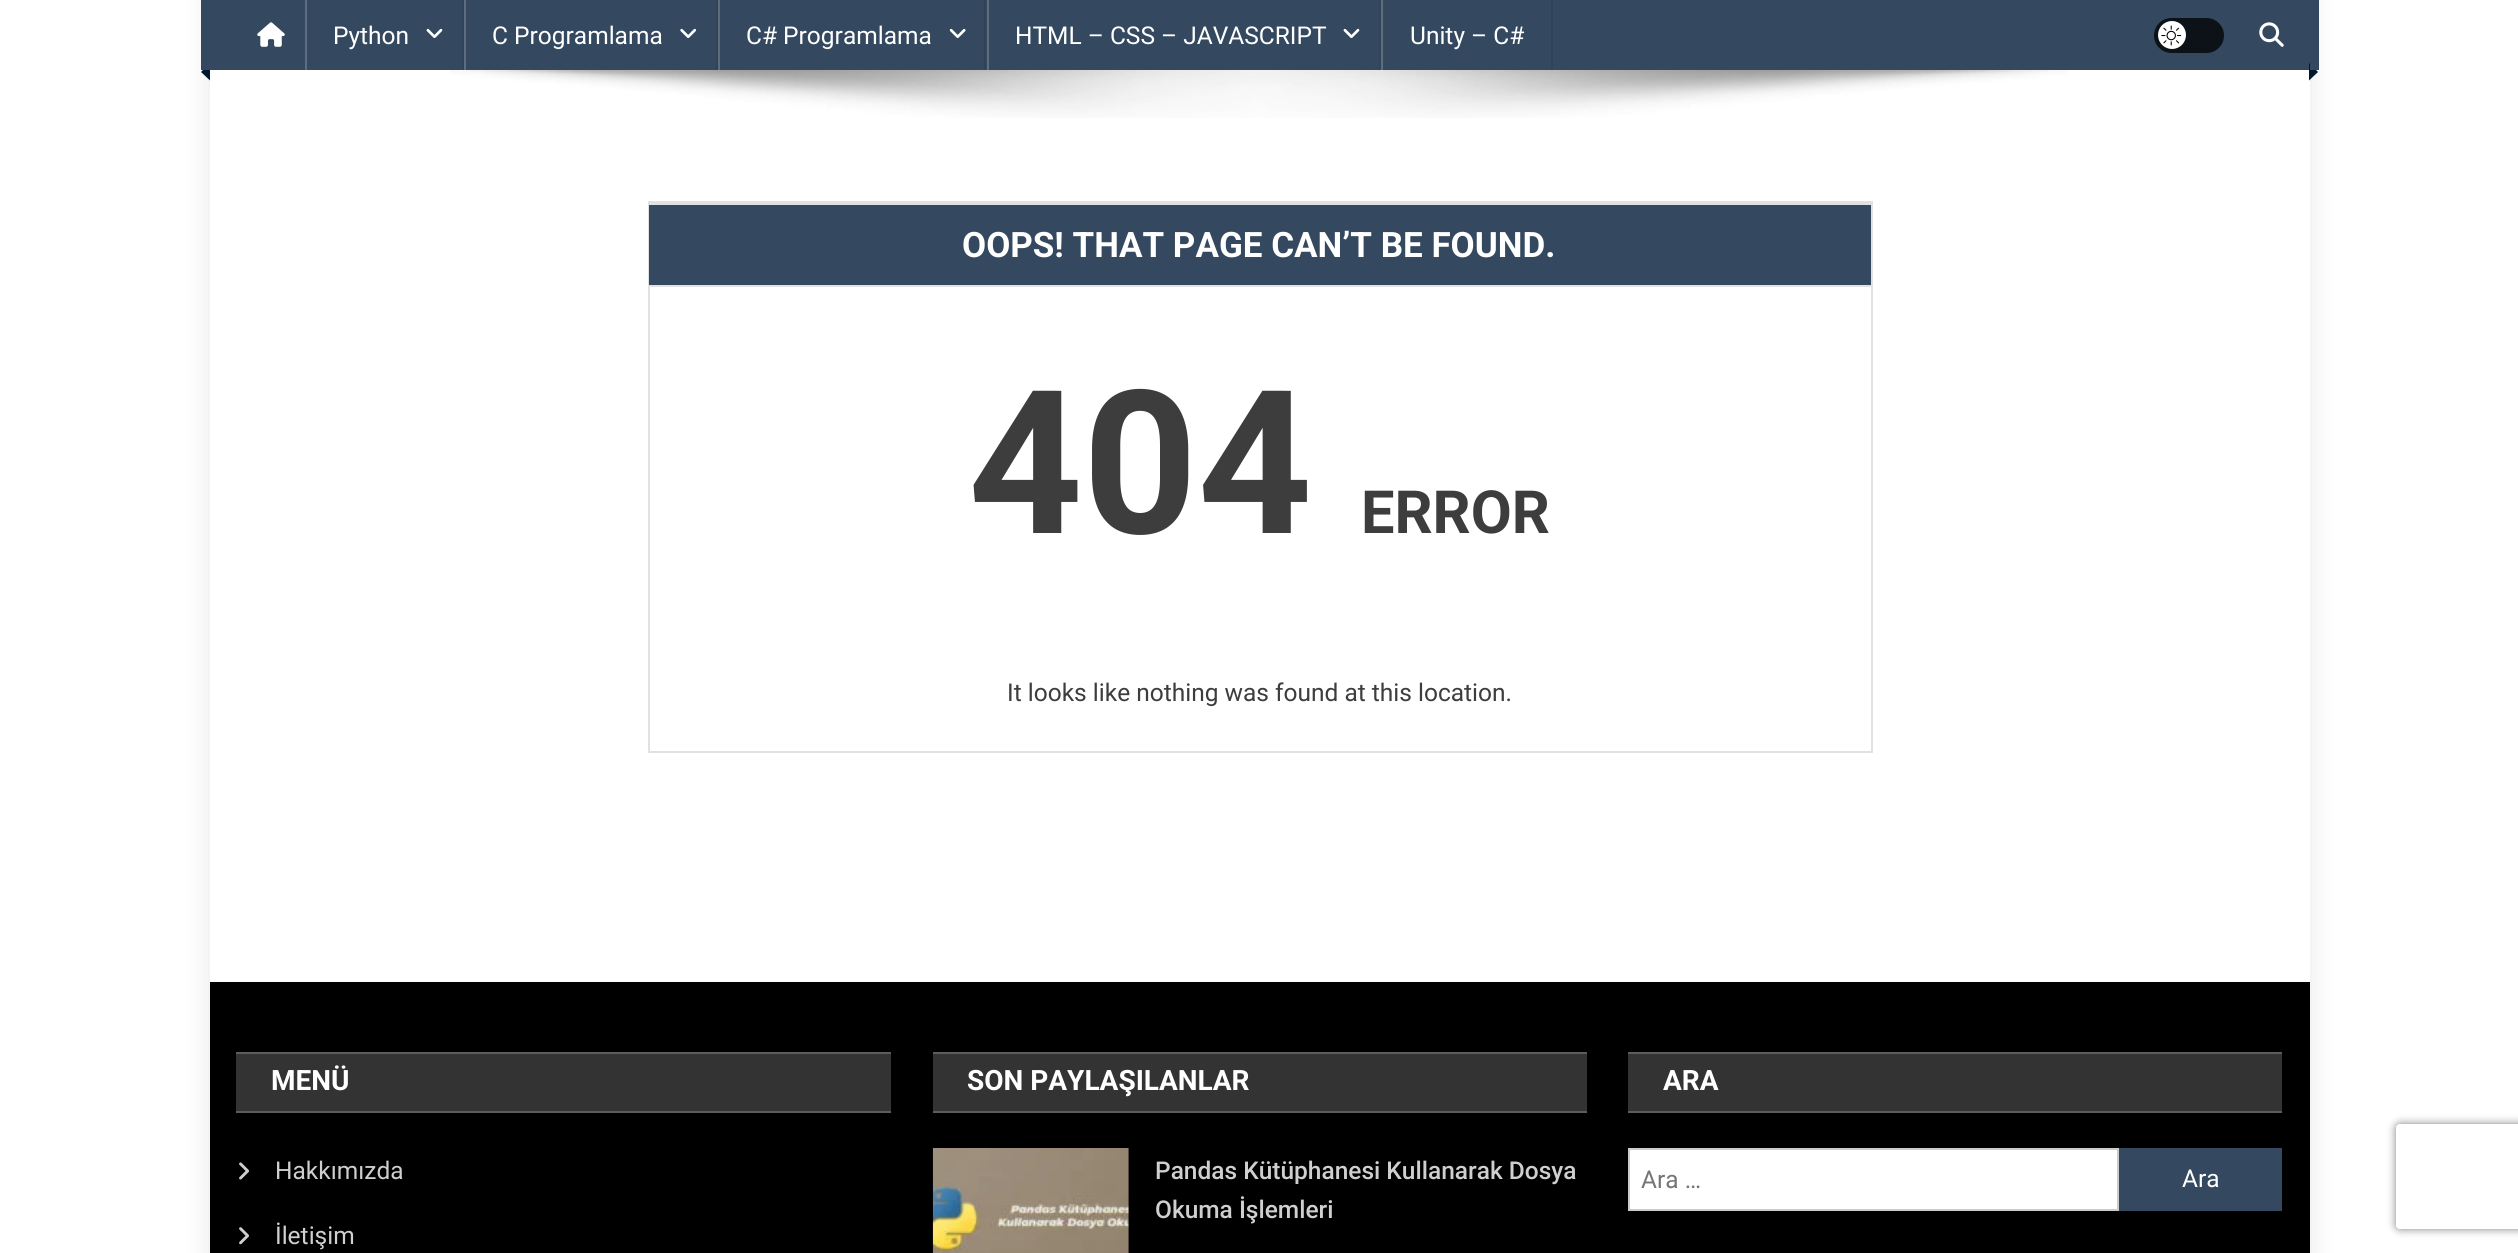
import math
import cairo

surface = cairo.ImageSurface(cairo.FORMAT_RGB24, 2518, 1253)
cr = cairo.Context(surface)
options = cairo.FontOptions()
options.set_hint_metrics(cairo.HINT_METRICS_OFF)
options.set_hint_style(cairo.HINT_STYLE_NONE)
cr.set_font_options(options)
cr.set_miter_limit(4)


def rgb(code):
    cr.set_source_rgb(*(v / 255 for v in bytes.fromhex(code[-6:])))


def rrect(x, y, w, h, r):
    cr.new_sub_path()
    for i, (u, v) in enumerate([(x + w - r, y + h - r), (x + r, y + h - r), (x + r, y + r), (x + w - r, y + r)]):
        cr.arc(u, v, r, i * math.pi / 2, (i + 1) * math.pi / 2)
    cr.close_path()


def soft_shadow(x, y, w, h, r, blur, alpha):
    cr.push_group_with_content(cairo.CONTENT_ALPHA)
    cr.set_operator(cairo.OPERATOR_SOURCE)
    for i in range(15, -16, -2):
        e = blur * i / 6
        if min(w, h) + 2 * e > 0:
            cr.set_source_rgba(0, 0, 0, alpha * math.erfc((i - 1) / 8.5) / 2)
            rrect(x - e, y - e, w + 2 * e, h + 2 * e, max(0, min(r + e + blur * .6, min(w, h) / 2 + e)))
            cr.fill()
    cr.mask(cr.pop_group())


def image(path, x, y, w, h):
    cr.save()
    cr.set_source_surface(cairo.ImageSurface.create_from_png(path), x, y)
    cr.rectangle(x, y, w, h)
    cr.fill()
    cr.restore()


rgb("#ffffff")
cr.paint()
cr.save()
cr.set_fill_rule(cairo.FILL_RULE_EVEN_ODD)
cr.new_path()
cr.move_to(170, 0)
cr.line_to(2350, 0)
cr.line_to(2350, 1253)
cr.line_to(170, 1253)
cr.close_path()
cr.move_to(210, -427)
cr.line_to(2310, -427)
cr.line_to(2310, 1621)
cr.line_to(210, 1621)
cr.close_path()
cr.clip()
rgb("#000000")
soft_shadow(210, -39, 2100, 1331, 0, 13, 0.1)
cr.restore()
rgb("#34495f")
cr.rectangle(210, 0, 2100, 70)
cr.fill()
rgb("#02172d")
cr.new_path()
cr.move_to(210, 63)
cr.line_to(210, 80.5)
cr.line_to(201, 72)
cr.close_path()
cr.fill()
rgb("#34495f")
cr.rectangle(201, 0, 9, 70)
cr.fill()
image("img/1.png", 257, 22, 28, 25)
rgb("#304357")
cr.rectangle(462, 0, 2, 70)
cr.fill()
rgb("#5d6d7f")
cr.rectangle(305, 0, 2, 70)
cr.fill()
image("img/2.png", 426, 28, 17, 10)
rgb("#304357")
cr.rectangle(716, 0, 2, 70)
cr.fill()
rgb("#5d6d7f")
cr.rectangle(464, 0, 2, 70)
cr.fill()
image("img/3.png", 680, 28, 16, 10)
rgb("#304357")
cr.rectangle(984, 0, 2, 70)
cr.fill()
rgb("#5d6d7f")
cr.rectangle(718, 0, 2, 70)
cr.fill()
image("img/4.png", 949, 28, 17, 10)
rgb("#304357")
cr.rectangle(1379, 0, 2, 70)
cr.fill()
rgb("#5d6d7f")
cr.rectangle(987, 0, 2, 70)
cr.fill()
image("img/2.png", 1343, 28, 17, 10)
rgb("#304357")
cr.rectangle(1551, 0, 2, 70)
cr.fill()
rgb("#5d6d7f")
cr.rectangle(1381, 0, 2, 70)
cr.fill()
rgb("#0d1218")
rrect(2154, 18, 70, 35, 17.5)
cr.fill()
rgb("#ffffff")
cr.arc(2172, 35, 14, 0, 2 * math.pi)
cr.fill()
image("img/5.png", 2161, 25, 21, 21)
image("img/6.png", 2259, 22, 25, 25)
image("img/7.png", 450, 70, 1618, 48)
rgb("#02172d")
cr.new_path()
cr.move_to(2309, 80.5)
cr.line_to(2309, 63)
cr.line_to(2318, 72)
cr.close_path()
cr.fill()
rgb("#34495f")
cr.rectangle(2310, 0, 9, 70)
cr.fill()
cr.rectangle(649, 202, 1223, 550)
rgb("#e1e1e1")
cr.stroke()
for x, y, w, h, color in [
    (649, 205, 1222, 80, "#34495f"),
    (649, 203, 1222, 2, "#e1e1e1"),
    (649, 285, 1222, 2, "#e1e1e1"),
    (210, 982, 2100, 271, "#000000"),
    (236, 1054, 655, 57, "#333333"),
    (236, 1052, 655, 2, "#5c5c5c"),
    (236, 1111, 655, 2, "#5c5c5c"),
]:
    rgb(color)
    cr.rectangle(x, y, w, h)
    cr.fill()
image("img/8.png", 239, 1162, 10, 18)
image("img/9.png", 239, 1227, 10, 18)
for x, y, w, h, color in [
    (933, 1054, 654, 57, "#333333"),
    (933, 1052, 654, 2, "#5c5c5c"),
    (933, 1111, 654, 2, "#5c5c5c"),
]:
    rgb(color)
    cr.rectangle(x, y, w, h)
    cr.fill()
image("img/10.png", 932, 1148, 197, 105)
for x, y, w, h, color in [
    (1628, 1054, 654, 57, "#333333"),
    (1628, 1052, 654, 2, "#5c5c5c"),
    (1628, 1111, 654, 2, "#5c5c5c"),
]:
    rgb(color)
    cr.rectangle(x, y, w, h)
    cr.fill()
rgb("#ffffff")
cr.rectangle(1629, 1149, 489, 61)
cr.fill_preserve()
rgb("#cccccc")
cr.stroke()
rgb("#34495f")
cr.rectangle(2119, 1148, 163, 63)
cr.fill()
cr.save()
cr.set_fill_rule(cairo.FILL_RULE_EVEN_ODD)
cr.new_path()
cr.move_to(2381, 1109)
cr.line_to(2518, 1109)
cr.line_to(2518, 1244)
cr.line_to(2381, 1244)
cr.close_path()
cr.move_to(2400, 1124)
cr.line_to(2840, 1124)
cr.curve_to(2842, 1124, 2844, 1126, 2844, 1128)
cr.line_to(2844, 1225)
cr.curve_to(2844, 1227, 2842, 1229, 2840, 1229)
cr.line_to(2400, 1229)
cr.curve_to(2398, 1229, 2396, 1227, 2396, 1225)
cr.line_to(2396, 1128)
cr.curve_to(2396, 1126, 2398, 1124, 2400, 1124)
cr.close_path()
cr.clip()
rgb("#808080")
soft_shadow(2396, 1124, 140, 105, 4, 4.5, 1)
cr.restore()
cr.select_font_face("Roboto")
cr.set_font_size(24.5)
rgb("#ffffff")
for x, y, s in [
    (333, 44, "Python"),
    (492, 44, "C Programlama"),
    (746, 44, "C# Programlama"),
    (1015, 44, "HTML – CSS – JAVASCRIPT"),
    (1410, 44, "Unity – C#"),
]:
    cr.move_to(x, y)
    cr.show_text(s)
cr.select_font_face("Roboto", cairo.FONT_SLANT_NORMAL, cairo.FONT_WEIGHT_BOLD)
cr.set_font_size(35)
cr.move_to(962, 257)
cr.show_text("OOPS! THAT PAGE CAN’T BE FOUND.")
cr.set_font_size(200)
rgb("#3d3d3d")
cr.move_to(968, 533)
cr.show_text("404")
cr.set_font_size(59.5)
cr.move_to(1361, 533)
cr.show_text("ERROR")
cr.select_font_face("Roboto")
cr.set_font_size(24.5)
cr.move_to(1007, 701)
cr.show_text("It looks like nothing was found at this location.")
cr.select_font_face("Roboto", cairo.FONT_SLANT_NORMAL, cairo.FONT_WEIGHT_BOLD)
cr.set_font_size(28)
rgb("#ffffff")
cr.move_to(271, 1090)
cr.show_text("MENÜ")
cr.select_font_face("Roboto")
cr.set_font_size(24.5)
rgb("#cfcfcf")
cr.move_to(275, 1179)
cr.show_text("Hakkımızda")
cr.move_to(275, 1244)
cr.show_text("İletişim")
cr.select_font_face("Roboto", cairo.FONT_SLANT_NORMAL, cairo.FONT_WEIGHT_BOLD)
cr.set_font_size(28)
rgb("#ffffff")
cr.move_to(967, 1090)
cr.show_text("SON PAYLAŞILANLAR")
cr.select_font_face("Roboto Medium")
cr.set_font_size(24.5)
rgb("#cfcfcf")
cr.move_to(1155, 1179)
cr.show_text("Pandas Kütüphanesi Kullanarak Dosya")
cr.move_to(1155, 1218)
cr.show_text("Okuma İşlemleri")
cr.select_font_face("Roboto", cairo.FONT_SLANT_NORMAL, cairo.FONT_WEIGHT_BOLD)
cr.set_font_size(28)
rgb("#ffffff")
cr.move_to(1663, 1090)
cr.show_text("ARA")
cr.select_font_face("Roboto")
cr.set_font_size(24.5)
rgb("#757575")
cr.move_to(1641, 1188)
cr.show_text("Ara …")
rgb("#ffffff")
cr.move_to(2182, 1187)
cr.show_text("Ara")
surface.write_to_png("page.png")
